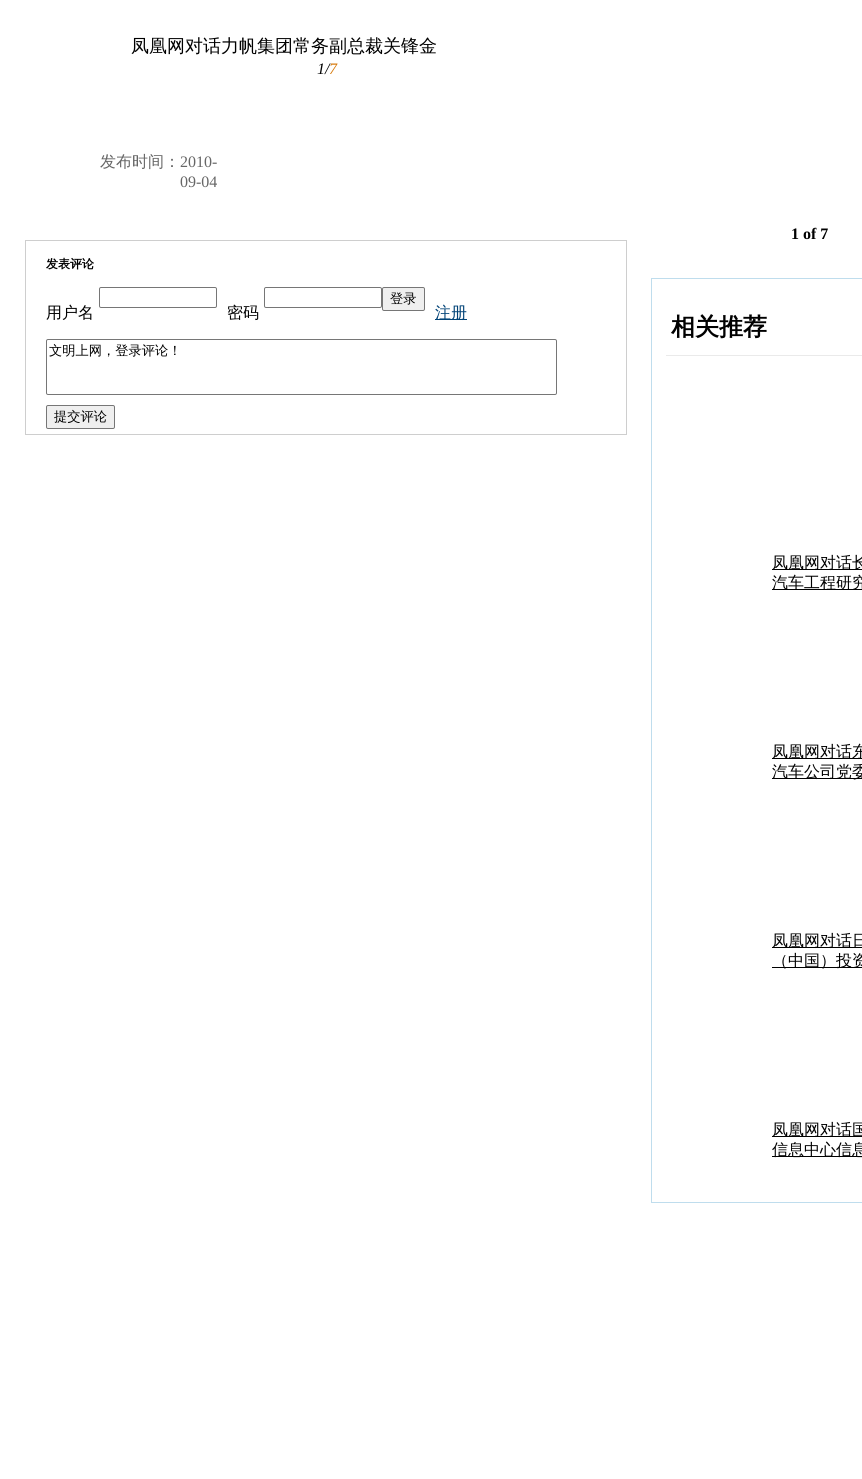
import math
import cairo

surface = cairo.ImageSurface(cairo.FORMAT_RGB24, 862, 1479)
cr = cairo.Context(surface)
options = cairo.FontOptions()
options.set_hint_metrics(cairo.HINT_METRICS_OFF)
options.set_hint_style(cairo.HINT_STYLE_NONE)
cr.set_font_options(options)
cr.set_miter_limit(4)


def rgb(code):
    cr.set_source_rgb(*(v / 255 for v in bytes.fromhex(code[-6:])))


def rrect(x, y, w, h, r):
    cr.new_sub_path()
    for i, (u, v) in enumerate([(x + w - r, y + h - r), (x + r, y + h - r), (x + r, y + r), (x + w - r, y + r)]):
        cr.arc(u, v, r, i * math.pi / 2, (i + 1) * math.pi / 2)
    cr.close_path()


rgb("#ffffff")
cr.paint()
cr.rectangle(25.5, 240.5, 601, 194)
rgb("#cecece")
cr.set_line_width(1)
cr.stroke()
rrect(99.5, 287.5, 117, 20, 1.5)
rgb("#767676")
cr.stroke()
rrect(264.5, 287.5, 117, 20, 1.5)
cr.stroke()
rgb("#efefef")
rrect(382.5, 287.5, 42, 23, 1.5)
cr.fill_preserve()
rgb("#767676")
cr.stroke()
rgb("#014377")
cr.rectangle(435, 319, 32, 1)
cr.fill()
rrect(46.5, 339.5, 510, 55, 1.5)
rgb("#767676")
cr.stroke()
rgb("#efefef")
rrect(46.5, 405.5, 68, 23, 1.5)
cr.fill_preserve()
rgb("#767676")
cr.stroke()
cr.rectangle(651.5, 278.5, 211, 924)
rgb("#bfdded")
cr.stroke()
for x, y, w, h, color in [
    (666, 355, 196, 1, "#eaeaea"),
    (772, 569, 90, 1, "#000000"),
    (772, 589, 90, 1, "#000000"),
    (772, 758, 90, 1, "#000000"),
    (772, 778, 90, 1, "#000000"),
    (772, 947, 90, 1, "#000000"),
    (772, 967, 90, 1, "#000000"),
    (772, 1136, 90, 1, "#000000"),
    (772, 1156, 90, 1, "#000000"),
]:
    rgb(color)
    cr.rectangle(x, y, w, h)
    cr.fill()
cr.select_font_face("WenQuanYi Zen Hei Medium")
cr.set_font_size(18)
cr.move_to(131, 52)
cr.show_text("凤凰网对话力帆集团常务副总裁关锋金")
cr.select_font_face("Liberation Serif", cairo.FONT_SLANT_ITALIC)
cr.set_font_size(16)
cr.move_to(317, 74)
cr.show_text("1/")
rgb("#d57605")
cr.move_to(329, 74)
cr.show_text("7")
cr.select_font_face("WenQuanYi Zen Hei Medium")
rgb("#666666")
cr.move_to(100, 167)
cr.show_text("发布时间：")
cr.select_font_face("Liberation Serif")
cr.move_to(180, 167)
cr.show_text("2010-")
cr.move_to(180, 187)
cr.show_text("09-04")
cr.select_font_face("WenQuanYi Zen Hei", cairo.FONT_SLANT_NORMAL, cairo.FONT_WEIGHT_BOLD)
cr.set_font_size(12)
rgb("#000000")
cr.move_to(46, 268)
cr.show_text("发表评论")
cr.select_font_face("WenQuanYi Zen Hei Medium")
cr.set_font_size(13.25)
cr.move_to(390, 303)
cr.show_text("登录")
cr.set_font_size(16)
cr.move_to(46, 318)
cr.show_text("用户名")
cr.move_to(227, 318)
cr.show_text("密码")
rgb("#014377")
cr.move_to(435, 318)
cr.show_text("注册")
cr.set_font_size(13.25)
rgb("#000000")
cr.move_to(49, 355)
cr.show_text("文明上网，登录评论！")
cr.move_to(54, 421)
cr.show_text("提交评论")
cr.select_font_face("Liberation Serif", cairo.FONT_SLANT_NORMAL, cairo.FONT_WEIGHT_BOLD)
cr.set_font_size(16)
cr.move_to(791, 239)
cr.show_text("1 of 7")
cr.select_font_face("WenQuanYi Zen Hei", cairo.FONT_SLANT_NORMAL, cairo.FONT_WEIGHT_BOLD)
cr.set_font_size(24)
cr.move_to(671, 335)
cr.show_text("相关推荐")
cr.select_font_face("WenQuanYi Zen Hei Medium")
cr.set_font_size(16)
for x, y, s in [
    (772, 568, "凤凰网对话长"),
    (772, 588, "汽车工程研究"),
    (772, 757, "凤凰网对话东"),
    (772, 777, "汽车公司党委"),
    (772, 946, "凤凰网对话日"),
    (772, 966, "（中国）投资"),
    (772, 1135, "凤凰网对话国"),
    (772, 1155, "信息中心信息"),
]:
    cr.move_to(x, y)
    cr.show_text(s)
surface.write_to_png("page.png")
